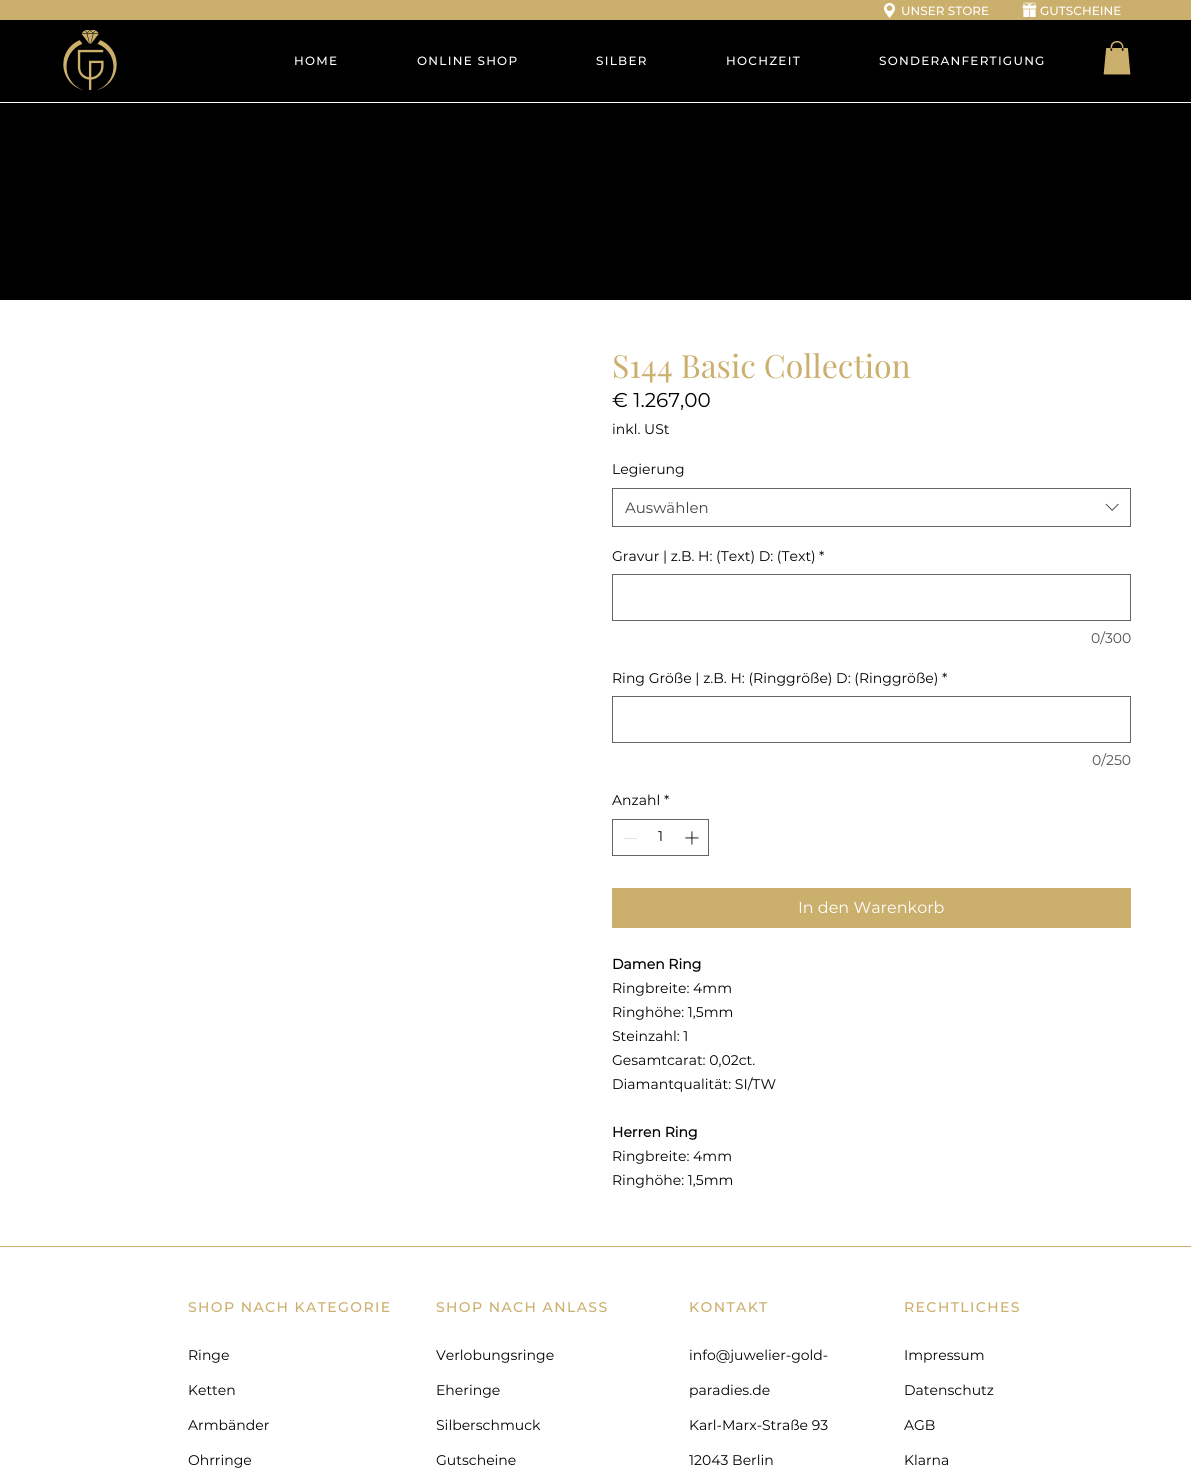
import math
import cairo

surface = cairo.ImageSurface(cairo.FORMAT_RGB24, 1191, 1482)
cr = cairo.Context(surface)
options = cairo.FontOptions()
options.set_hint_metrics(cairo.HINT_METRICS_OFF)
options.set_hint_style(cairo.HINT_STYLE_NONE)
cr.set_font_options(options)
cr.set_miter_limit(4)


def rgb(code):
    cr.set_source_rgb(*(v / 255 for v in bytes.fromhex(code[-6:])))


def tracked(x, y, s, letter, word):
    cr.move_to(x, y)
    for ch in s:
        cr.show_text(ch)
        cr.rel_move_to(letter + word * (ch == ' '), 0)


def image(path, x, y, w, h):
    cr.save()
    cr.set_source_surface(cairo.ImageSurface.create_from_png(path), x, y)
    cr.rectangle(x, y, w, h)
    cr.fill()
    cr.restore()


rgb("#ffffff")
cr.paint()
rgb("#cbaf6c")
cr.rectangle(0, 0, 1191, 20)
cr.fill()
image("img/1.png", 883, 3, 13, 15)
image("img/2.png", 1022, 2, 15, 15)
rgb("#000000")
cr.rectangle(0, 20, 1191, 280)
cr.fill()
image("img/3.png", 63, 30, 54, 60)
image("img/4.png", 1103, 41, 28, 34)
rgb("#ffffff")
cr.rectangle(0, 102, 1191, 1)
cr.fill()
cr.rectangle(612.5, 488.5, 518, 38)
rgb("#666666")
cr.set_line_width(1)
cr.stroke()
image("img/5.png", 1105, 503, 14, 8)
cr.rectangle(612.5, 574.5, 518, 46)
cr.stroke()
cr.rectangle(612.5, 696.5, 518, 46)
cr.stroke()
cr.rectangle(612.5, 819.5, 96, 36)
cr.stroke()
rgb("#e3e3e3")
cr.rectangle(624, 838, 13, 1)
cr.fill()
image("img/6.png", 685, 831, 14, 14)
rgb("#cbaf6c")
cr.rectangle(612, 888, 519, 40)
cr.fill()
cr.rectangle(0, 1246, 1191, 1)
cr.fill()
cr.select_font_face("Montserrat Medium")
cr.set_font_size(12)
rgb("#ffffff")
cr.move_to(901, 15)
cr.show_text("UNSER STORE")
cr.move_to(1040, 15)
cr.show_text("GUTSCHEINE")
for x, y, s in [
    (294, 65, "HOME"),
    (417, 65, "ONLINE SHOP"),
    (596, 65, "SILBER"),
    (726, 65, "HOCHZEIT"),
    (879, 65, "SONDERANFERTIGUNG"),
]:
    tracked(x, y, s, 1.25, 0)
cr.select_font_face("Playfair Display")
cr.set_font_size(32)
rgb("#cbaf6c")
cr.move_to(612, 378)
cr.show_text("S144 Basic Collection")
cr.select_font_face("Montserrat")
cr.set_font_size(20)
rgb("#000000")
cr.move_to(612, 407)
cr.show_text("€ 1.267,00")
cr.set_font_size(14)
cr.move_to(612, 434)
cr.show_text("inkl. USt")
cr.move_to(612, 474)
cr.show_text("Legierung")
cr.set_font_size(15)
rgb("#444444")
cr.move_to(625, 513)
cr.show_text("Auswählen")
cr.set_font_size(14)
rgb("#000000")
cr.move_to(612, 561)
cr.show_text("Gravur | z.B. H: (Text) D: (Text)")
cr.move_to(819, 561)
cr.show_text("*")
rgb("#4f4f4f")
cr.move_to(1091, 643)
cr.show_text("0/300")
rgb("#000000")
cr.move_to(612, 683)
cr.show_text("Ring Größe | z.B. H: (Ringgröße) D: (Ringgröße)")
cr.move_to(942, 683)
cr.show_text("*")
rgb("#4f4f4f")
cr.move_to(1092, 765)
cr.show_text("0/250")
rgb("#000000")
for x, y, s in [
    (612, 805, "Anzahl"),
    (664, 805, "*"),
    (658, 841, "1"),
]:
    cr.move_to(x, y)
    cr.show_text(s)
cr.set_font_size(16)
rgb("#ffffff")
cr.move_to(798, 913)
cr.show_text("In den Warenkorb")
cr.select_font_face("Montserrat", cairo.FONT_SLANT_NORMAL, cairo.FONT_WEIGHT_BOLD)
cr.set_font_size(14)
rgb("#000000")
cr.move_to(612, 969)
cr.show_text("Damen Ring")
cr.select_font_face("Montserrat")
for x, y, s in [
    (612, 993, "Ringbreite: 4mm"),
    (612, 1017, "Ringhöhe: 1,5mm"),
    (612, 1041, "Steinzahl: 1"),
    (612, 1065, "Gesamtcarat: 0,02ct."),
    (612, 1089, "Diamantqualität: SI/TW"),
]:
    cr.move_to(x, y)
    cr.show_text(s)
cr.select_font_face("Montserrat", cairo.FONT_SLANT_NORMAL, cairo.FONT_WEIGHT_BOLD)
cr.move_to(612, 1137)
cr.show_text("Herren Ring")
cr.select_font_face("Montserrat")
cr.move_to(612, 1161)
cr.show_text("Ringbreite: 4mm")
cr.move_to(612, 1185)
cr.show_text("Ringhöhe: 1,5mm")
cr.select_font_face("Montserrat Medium")
rgb("#cbaf6c")
tracked(188, 1312, "SHOP NACH KATEGORIE", 1.4, 0)
cr.select_font_face("Montserrat")
rgb("#000000")
for x, y, s in [
    (188, 1360, "Ringe"),
    (188, 1395, "Ketten"),
    (188, 1430, "Armbänder"),
    (188, 1465, "Ohrringe"),
]:
    cr.move_to(x, y)
    cr.show_text(s)
cr.select_font_face("Montserrat Medium")
rgb("#cbaf6c")
tracked(436, 1312, "SHOP NACH ANLASS", 1.4, 0)
cr.select_font_face("Montserrat")
rgb("#000000")
for x, y, s in [
    (436, 1360, "Verlobungsringe"),
    (436, 1395, "Eheringe"),
    (436, 1430, "Silberschmuck"),
    (436, 1465, "Gutscheine"),
]:
    cr.move_to(x, y)
    cr.show_text(s)
cr.select_font_face("Montserrat Medium")
rgb("#cbaf6c")
tracked(689, 1312, "KONTAKT", 1.4, 0)
cr.select_font_face("Montserrat")
rgb("#000000")
for x, y, s in [
    (689, 1360, "info@juwelier-gold-"),
    (689, 1395, "paradies.de"),
    (689, 1430, "Karl-Marx-Straße 93"),
    (689, 1465, "12043 Berlin"),
]:
    cr.move_to(x, y)
    cr.show_text(s)
cr.select_font_face("Montserrat Medium")
rgb("#cbaf6c")
tracked(904, 1312, "RECHTLICHES", 1.4, 0)
cr.select_font_face("Montserrat")
rgb("#000000")
for x, y, s in [
    (904, 1360, "Impressum"),
    (904, 1395, "Datenschutz"),
    (904, 1430, "AGB"),
    (904, 1465, "Klarna"),
]:
    cr.move_to(x, y)
    cr.show_text(s)
surface.write_to_png("page.png")
